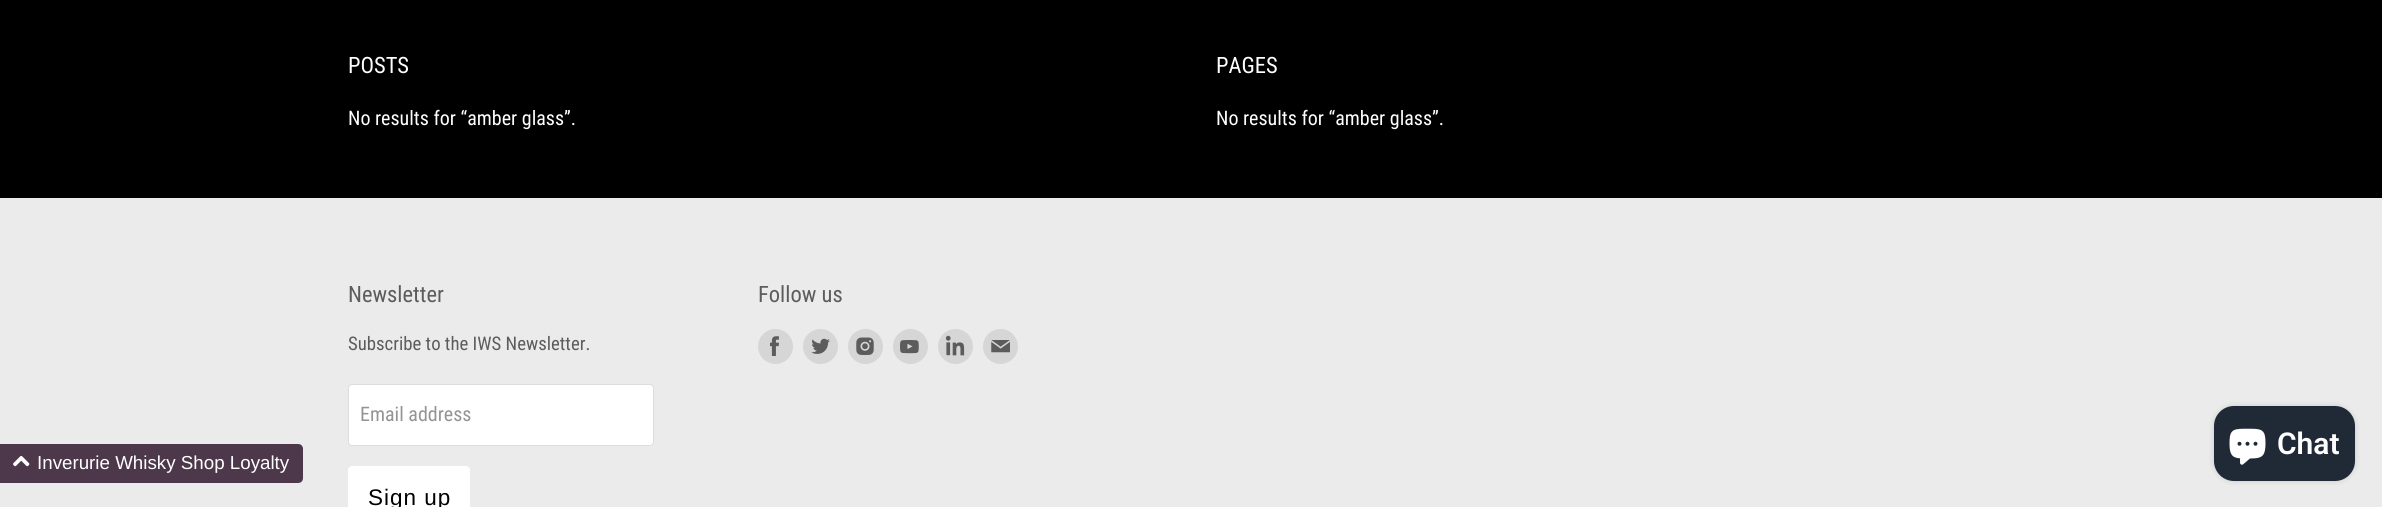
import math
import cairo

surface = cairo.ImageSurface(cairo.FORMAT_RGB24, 2382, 507)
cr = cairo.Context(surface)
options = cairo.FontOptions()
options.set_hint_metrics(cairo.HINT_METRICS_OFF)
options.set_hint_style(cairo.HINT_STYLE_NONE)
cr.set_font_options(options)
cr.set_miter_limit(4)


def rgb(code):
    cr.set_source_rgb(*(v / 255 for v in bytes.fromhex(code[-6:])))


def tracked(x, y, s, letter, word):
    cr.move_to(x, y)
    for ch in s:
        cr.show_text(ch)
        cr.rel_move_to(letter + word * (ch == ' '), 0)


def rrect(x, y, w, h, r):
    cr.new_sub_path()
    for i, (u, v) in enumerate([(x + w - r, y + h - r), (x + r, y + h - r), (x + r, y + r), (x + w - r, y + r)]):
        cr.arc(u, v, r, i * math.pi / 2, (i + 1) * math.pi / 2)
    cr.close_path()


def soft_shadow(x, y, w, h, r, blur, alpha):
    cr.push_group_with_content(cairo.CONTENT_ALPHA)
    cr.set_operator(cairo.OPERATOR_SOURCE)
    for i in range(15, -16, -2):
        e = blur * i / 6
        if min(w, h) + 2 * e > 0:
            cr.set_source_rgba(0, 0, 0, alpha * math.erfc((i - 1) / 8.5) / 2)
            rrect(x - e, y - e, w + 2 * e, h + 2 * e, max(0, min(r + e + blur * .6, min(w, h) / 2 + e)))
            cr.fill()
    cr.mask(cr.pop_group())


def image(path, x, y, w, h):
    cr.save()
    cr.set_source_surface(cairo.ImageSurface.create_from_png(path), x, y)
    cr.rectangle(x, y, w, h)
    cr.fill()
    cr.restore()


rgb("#000000")
cr.paint()
rgb("#ebebeb")
cr.rectangle(0, 198, 2382, 309)
cr.fill()
rgb("#ffffff")
rrect(348.5, 384.5, 305, 61, 3.5)
cr.fill_preserve()
rgb("#dddddd")
cr.set_line_width(1)
cr.stroke()
rgb("#ffffff")
rrect(348.5, 466.5, 121, 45, 3.5)
cr.fill_preserve()
cr.stroke()
rgb("#d6d6d6")
cr.arc(775.5, 346.5, 17.5, 0, 2 * math.pi)
cr.fill()
image("img/1.png", 770, 336, 9, 20)
cr.arc(820.5, 346.5, 17.5, 0, 2 * math.pi)
cr.fill()
image("img/2.png", 811, 338, 19, 16)
cr.arc(865.5, 346.5, 17.5, 0, 2 * math.pi)
cr.fill()
image("img/3.png", 856, 337, 18, 18)
cr.arc(910.5, 346.5, 17.5, 0, 2 * math.pi)
cr.fill()
image("img/4.png", 900, 340, 19, 14)
cr.arc(955.5, 346.5, 17.5, 0, 2 * math.pi)
cr.fill()
image("img/5.png", 945, 335, 20, 21)
cr.arc(1000.5, 346.5, 17.5, 0, 2 * math.pi)
cr.fill()
image("img/6.png", 991, 340, 19, 13)
rgb("#000000")
soft_shadow(2214, 406, 141, 75, 20, 3, 0.15)
rgb("#202a36")
rrect(2214, 406, 141, 75, 20)
cr.fill()
image("img/7.png", 2229, 428, 37, 37)
rgb("#4d384b")
cr.new_path()
cr.move_to(0, 444)
cr.line_to(298, 444)
cr.curve_to(301, 444, 303, 446, 303, 449)
cr.line_to(303, 478)
cr.curve_to(303, 481, 301, 483, 298, 483)
cr.line_to(0, 483)
cr.close_path()
cr.fill()
image("img/8.png", 13, 455, 17, 12)
cr.select_font_face("Roboto Condensed")
cr.set_font_size(22.5)
rgb("#ffffff")
cr.move_to(348, 73)
cr.show_text("POSTS")
cr.set_font_size(20)
cr.move_to(348, 125)
cr.show_text("No results for “amber glass”.")
cr.set_font_size(22.5)
cr.move_to(1216, 73)
cr.show_text("PAGES")
cr.set_font_size(20)
cr.move_to(1216, 125)
cr.show_text("No results for “amber glass”.")
cr.set_font_size(22.5)
rgb("#5c5c5c")
cr.move_to(348, 302)
cr.show_text("Newsletter")
cr.set_font_size(18.75)
cr.move_to(348, 350)
cr.show_text("Subscribe to the IWS Newsletter.")
cr.set_font_size(20)
rgb("#949494")
cr.move_to(360, 421)
cr.show_text("Email address")
cr.select_font_face("Liberation Sans")
cr.set_font_size(22.5)
rgb("#000000")
tracked(368, 505, "Sign up", 1, 0)
cr.select_font_face("Roboto Condensed")
rgb("#5c5c5c")
cr.move_to(758, 302)
cr.show_text("Follow us")
cr.select_font_face("Roboto SemiBold")
cr.set_font_size(30)
rgb("#ffffff")
cr.move_to(2277, 454)
cr.show_text("Chat")
cr.select_font_face("Liberation Sans")
cr.set_font_size(18.75)
cr.move_to(37, 469)
cr.show_text("Inverurie Whisky Shop Loyalty")
surface.write_to_png("page.png")
